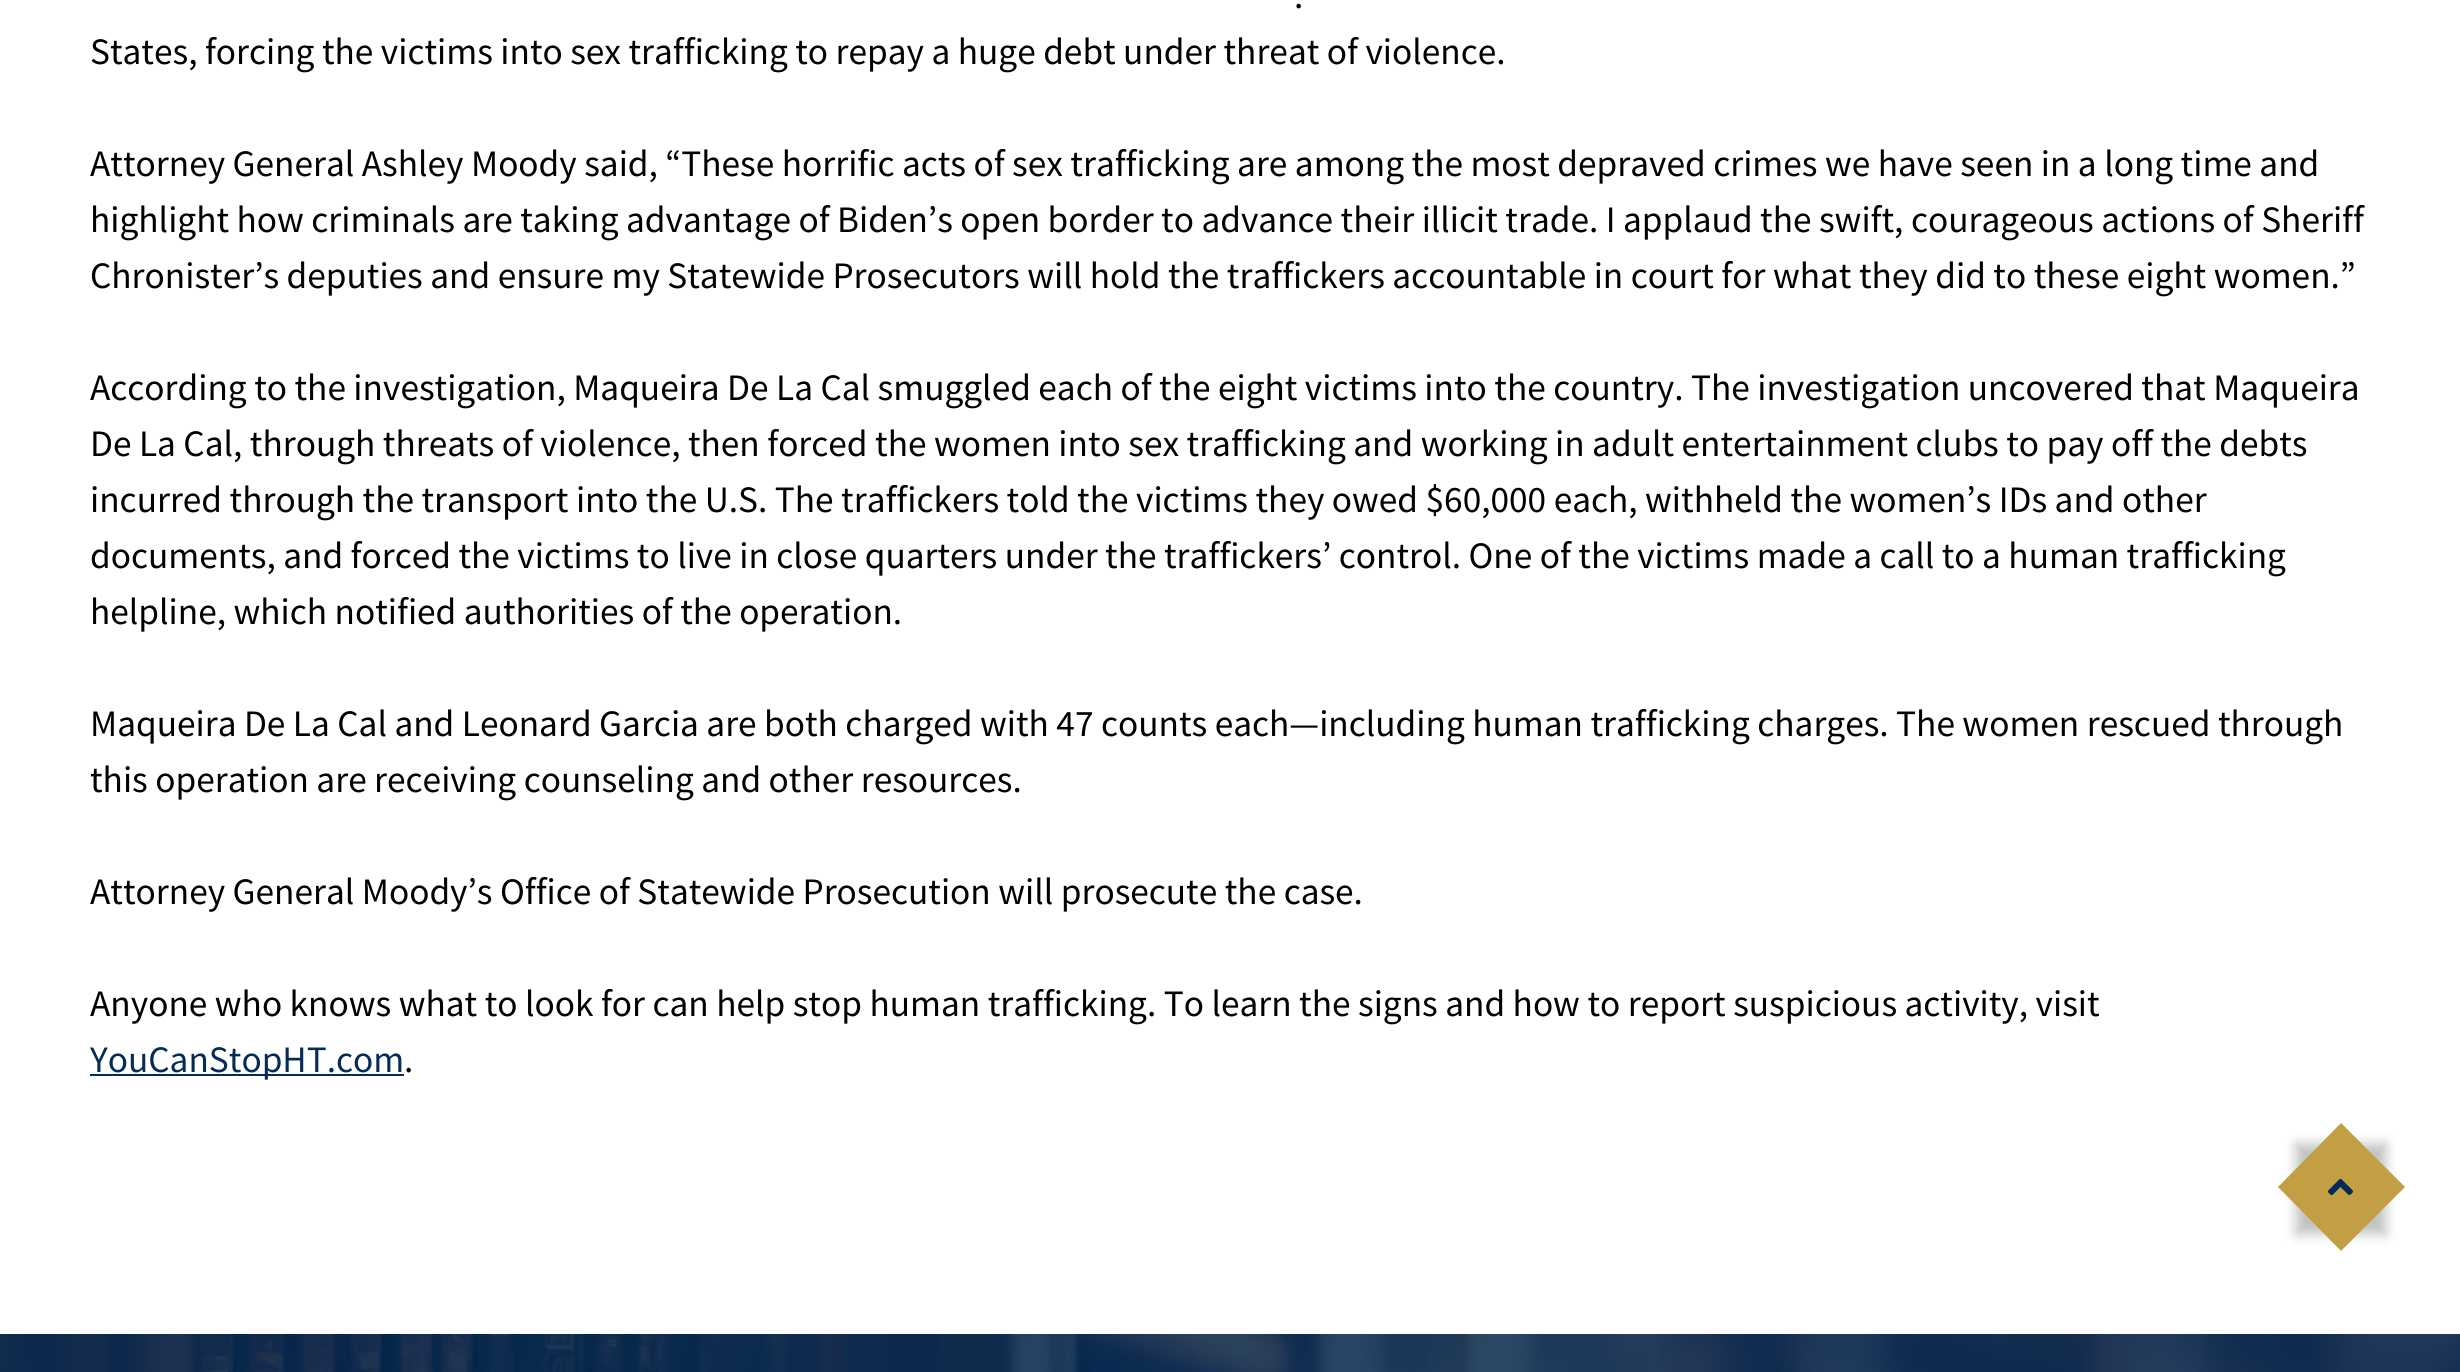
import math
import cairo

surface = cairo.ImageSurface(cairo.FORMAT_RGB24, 2460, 1372)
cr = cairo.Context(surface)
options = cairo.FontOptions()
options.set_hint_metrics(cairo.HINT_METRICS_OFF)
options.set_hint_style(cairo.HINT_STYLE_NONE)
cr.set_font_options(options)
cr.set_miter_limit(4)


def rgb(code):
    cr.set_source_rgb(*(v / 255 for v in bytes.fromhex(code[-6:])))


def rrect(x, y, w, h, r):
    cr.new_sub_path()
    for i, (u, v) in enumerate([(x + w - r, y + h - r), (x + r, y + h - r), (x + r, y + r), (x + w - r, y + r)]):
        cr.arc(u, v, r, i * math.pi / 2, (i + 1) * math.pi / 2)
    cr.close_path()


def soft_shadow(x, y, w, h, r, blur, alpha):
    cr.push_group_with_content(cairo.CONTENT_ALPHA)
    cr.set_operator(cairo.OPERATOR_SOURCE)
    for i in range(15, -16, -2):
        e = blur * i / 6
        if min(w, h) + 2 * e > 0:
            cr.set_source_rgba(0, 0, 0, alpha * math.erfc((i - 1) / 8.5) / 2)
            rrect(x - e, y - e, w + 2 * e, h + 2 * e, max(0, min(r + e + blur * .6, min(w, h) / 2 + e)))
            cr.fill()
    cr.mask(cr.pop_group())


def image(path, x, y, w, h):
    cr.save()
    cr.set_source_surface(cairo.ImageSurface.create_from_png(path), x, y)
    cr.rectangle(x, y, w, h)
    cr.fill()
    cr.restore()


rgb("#ffffff")
cr.paint()
rgb("#042c56")
cr.rectangle(90, 1074, 314, 2)
cr.fill()
image("img/1.png", 0, 1334, 2460, 38)
rgb("#202124")
soft_shadow(2296, 1144, 90, 90, 0, 6, 0.28)
rgb("#c39f44")
cr.new_path()
cr.move_to(2341, 1123)
cr.line_to(2405, 1187)
cr.line_to(2341, 1251)
cr.line_to(2278, 1187)
cr.close_path()
cr.fill()
image("img/2.png", 2328, 1179, 25, 16)
cr.select_font_face("Source Sans Pro")
cr.set_font_size(37.33)
rgb("#000000")
for x, y, s in [
    (1294, 8, "."),
    (90, 64, "States, forcing the victims into sex trafficking to repay a huge debt under threat of violence."),
    (90, 176, "Attorney General Ashley Moody said, “These horrific acts of sex trafficking are among the most depraved crimes we have seen in a long time and"),
    (90, 232, "highlight how criminals are taking advantage of Biden’s open border to advance their illicit trade. I applaud the swift, courageous actions of Sheriff"),
    (90, 288, "Chronister’s deputies and ensure my Statewide Prosecutors will hold the traffickers accountable in court for what they did to these eight women.”"),
    (90, 400, "According to the investigation, Maqueira De La Cal smuggled each of the eight victims into the country. The investigation uncovered that Maqueira"),
    (90, 456, "De La Cal, through threats of violence, then forced the women into sex trafficking and working in adult entertainment clubs to pay off the debts"),
    (90, 512, "incurred through the transport into the U.S. The traffickers told the victims they owed $60,000 each, withheld the women’s IDs and other"),
    (90, 568, "documents, and forced the victims to live in close quarters under the traffickers’ control. One of the victims made a call to a human trafficking"),
    (90, 624, "helpline, which notified authorities of the operation."),
    (90, 736, "Maqueira De La Cal and Leonard Garcia are both charged with 47 counts each—including human trafficking charges. The women rescued through"),
    (90, 792, "this operation are receiving counseling and other resources."),
    (90, 904, "Attorney General Moody’s Office of Statewide Prosecution will prosecute the case."),
    (90, 1016, "Anyone who knows what to look for can help stop human trafficking. To learn the signs and how to report suspicious activity, visit"),
]:
    cr.move_to(x, y)
    cr.show_text(s)
rgb("#042c56")
cr.move_to(90, 1072)
cr.show_text("YouCanStopHT.com")
rgb("#000000")
cr.move_to(404, 1072)
cr.show_text(".")
surface.write_to_png("page.png")
